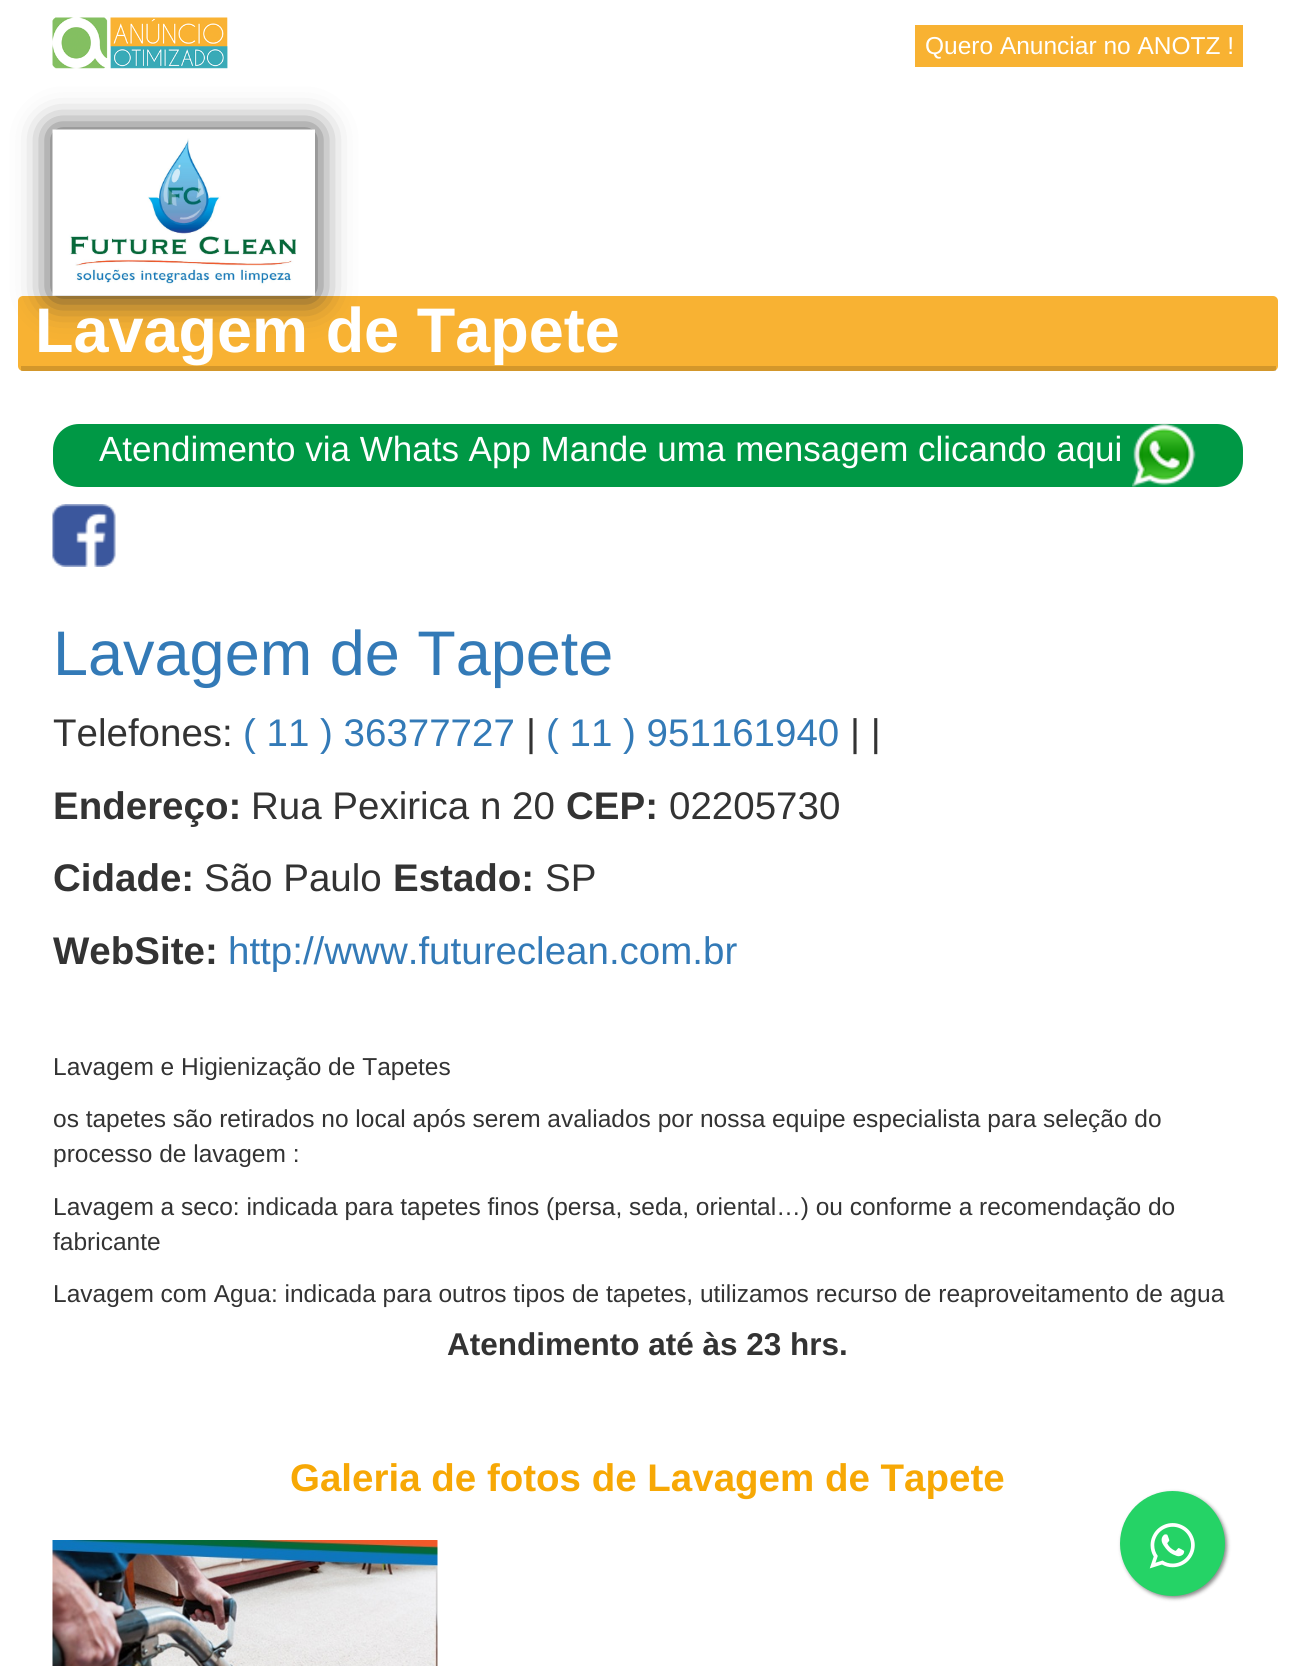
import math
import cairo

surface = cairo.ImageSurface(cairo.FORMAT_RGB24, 1294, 1666)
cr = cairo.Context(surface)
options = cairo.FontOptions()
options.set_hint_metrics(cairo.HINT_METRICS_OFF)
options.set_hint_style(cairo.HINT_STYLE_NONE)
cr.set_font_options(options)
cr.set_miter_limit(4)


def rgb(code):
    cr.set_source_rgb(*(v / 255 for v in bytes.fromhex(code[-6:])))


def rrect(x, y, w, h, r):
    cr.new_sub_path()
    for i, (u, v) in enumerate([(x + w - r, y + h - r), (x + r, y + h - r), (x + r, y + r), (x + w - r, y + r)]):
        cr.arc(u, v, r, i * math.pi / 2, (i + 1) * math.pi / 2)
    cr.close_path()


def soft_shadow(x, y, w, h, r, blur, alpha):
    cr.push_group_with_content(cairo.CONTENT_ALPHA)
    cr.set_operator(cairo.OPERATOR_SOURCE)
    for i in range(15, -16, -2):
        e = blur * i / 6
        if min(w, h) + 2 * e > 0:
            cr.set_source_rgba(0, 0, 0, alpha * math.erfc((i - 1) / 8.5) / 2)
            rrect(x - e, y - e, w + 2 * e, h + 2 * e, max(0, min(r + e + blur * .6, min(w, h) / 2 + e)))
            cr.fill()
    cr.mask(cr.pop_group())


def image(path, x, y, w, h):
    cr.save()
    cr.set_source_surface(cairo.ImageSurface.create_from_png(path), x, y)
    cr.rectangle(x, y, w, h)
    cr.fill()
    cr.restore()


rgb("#ffffff")
cr.paint()
image("img/1.png", 52, 17, 176, 52)
rgb("#f8b232")
cr.rectangle(915, 25, 328, 42)
cr.fill()
rgb("#f8b233")
rrect(18, 296, 1260, 75, 5)
cr.fill()
rgb("#363636")
soft_shadow(53, 130, 262, 166, 0, 17.5, 1)
image("img/2.png", 52, 129, 263, 167)
cr.set_source_rgba(0, 0, 0, 0.15)
cr.rectangle(21, 366, 1255, 5)
cr.fill()
rgb("#009845")
rrect(53, 424, 1190, 63, 26)
cr.fill()
image("img/3.png", 1132, 423, 64, 64)
image("img/4.png", 52, 504, 64, 63)
image("img/5.png", 52, 1540, 386, 126)
rgb("#888888")
soft_shadow(1122, 1493, 105, 105, 52.5, 2, 1)
rgb("#25d366")
cr.arc(1172.5, 1543.5, 52.5, 0, 2 * math.pi)
cr.fill()
image("img/6.png", 1149, 1523, 46, 46)
cr.select_font_face("Liberation Sans")
cr.set_font_size(24.5)
rgb("#ffffff")
cr.move_to(925, 54)
cr.show_text("Quero Anunciar no ANOTZ !")
cr.select_font_face("Liberation Sans", cairo.FONT_SLANT_NORMAL, cairo.FONT_WEIGHT_BOLD)
cr.set_font_size(63)
cr.move_to(35, 352)
cr.show_text("Lavagem de Tapete")
cr.select_font_face("Liberation Sans")
cr.set_font_size(35)
cr.move_to(99, 461)
cr.show_text("Atendimento via Whats App Mande uma mensagem clicando aqui")
cr.set_font_size(63)
rgb("#337ab7")
cr.move_to(53, 675)
cr.show_text("Lavagem de Tapete")
cr.set_font_size(38.5)
rgb("#333333")
cr.move_to(53, 746)
cr.show_text("Telefones:")
rgb("#337ab7")
cr.move_to(243, 746)
cr.show_text("( 11 ) 36377727")
rgb("#333333")
cr.move_to(526, 746)
cr.show_text("|")
rgb("#337ab7")
cr.move_to(546, 746)
cr.show_text("( 11 ) 951161940")
rgb("#333333")
cr.move_to(850, 746)
cr.show_text("| |")
cr.select_font_face("Liberation Sans", cairo.FONT_SLANT_NORMAL, cairo.FONT_WEIGHT_BOLD)
cr.move_to(53, 819)
cr.show_text("Endereço:")
cr.select_font_face("Liberation Sans")
cr.move_to(251, 819)
cr.show_text("Rua Pexirica n 20")
cr.select_font_face("Liberation Sans", cairo.FONT_SLANT_NORMAL, cairo.FONT_WEIGHT_BOLD)
cr.move_to(566, 819)
cr.show_text("CEP:")
cr.select_font_face("Liberation Sans")
cr.move_to(669, 819)
cr.show_text("02205730")
cr.select_font_face("Liberation Sans", cairo.FONT_SLANT_NORMAL, cairo.FONT_WEIGHT_BOLD)
cr.move_to(53, 891)
cr.show_text("Cidade:")
cr.select_font_face("Liberation Sans")
cr.move_to(204, 891)
cr.show_text("São Paulo")
cr.select_font_face("Liberation Sans", cairo.FONT_SLANT_NORMAL, cairo.FONT_WEIGHT_BOLD)
cr.move_to(393, 891)
cr.show_text("Estado:")
cr.select_font_face("Liberation Sans")
cr.move_to(545, 891)
cr.show_text("SP")
cr.select_font_face("Liberation Sans", cairo.FONT_SLANT_NORMAL, cairo.FONT_WEIGHT_BOLD)
cr.move_to(53, 964)
cr.show_text("WebSite:")
cr.select_font_face("Liberation Sans")
rgb("#337ab7")
cr.move_to(228, 964)
cr.show_text("http://www.futureclean.com.br")
cr.set_font_size(24.5)
rgb("#333333")
for x, y, s in [
    (53, 1075, "Lavagem e Higienização de Tapetes"),
    (53, 1127, "os tapetes são retirados no local após serem avaliados por nossa equipe especialista para seleção do"),
    (53, 1162, "processo de lavagem :"),
    (53, 1215, "Lavagem a seco: indicada para tapetes finos (persa, seda, oriental…) ou conforme a recomendação do"),
    (53, 1250, "fabricante"),
    (53, 1302, "Lavagem com Agua: indicada para outros tipos de tapetes, utilizamos recurso de reaproveitamento de agua"),
]:
    cr.move_to(x, y)
    cr.show_text(s)
cr.select_font_face("Liberation Sans", cairo.FONT_SLANT_NORMAL, cairo.FONT_WEIGHT_BOLD)
cr.set_font_size(31.5)
cr.move_to(447, 1355)
cr.show_text("Atendimento até às 23 hrs.")
cr.set_font_size(38.5)
rgb("#f7a805")
cr.move_to(290, 1491)
cr.show_text("Galeria de fotos de Lavagem de Tapete")
surface.write_to_png("page.png")
